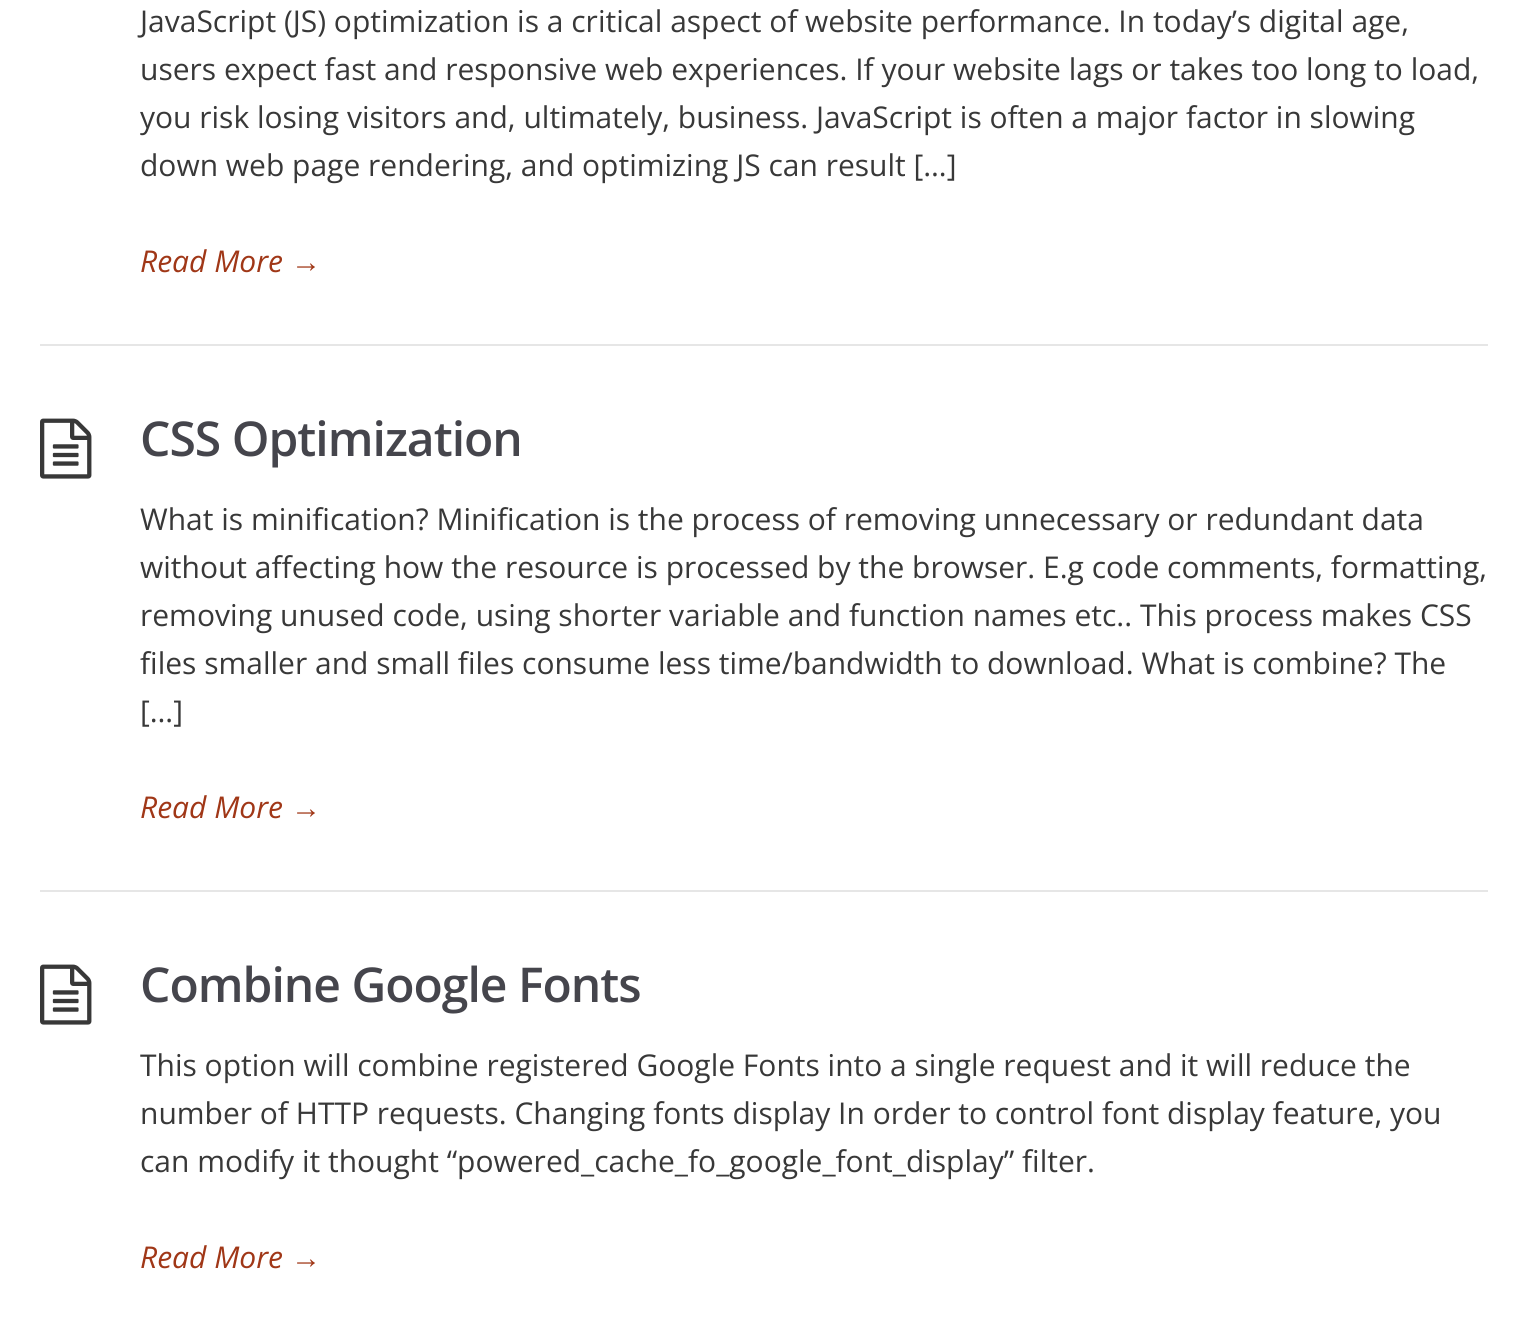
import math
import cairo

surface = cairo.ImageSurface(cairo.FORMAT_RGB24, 1528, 1333)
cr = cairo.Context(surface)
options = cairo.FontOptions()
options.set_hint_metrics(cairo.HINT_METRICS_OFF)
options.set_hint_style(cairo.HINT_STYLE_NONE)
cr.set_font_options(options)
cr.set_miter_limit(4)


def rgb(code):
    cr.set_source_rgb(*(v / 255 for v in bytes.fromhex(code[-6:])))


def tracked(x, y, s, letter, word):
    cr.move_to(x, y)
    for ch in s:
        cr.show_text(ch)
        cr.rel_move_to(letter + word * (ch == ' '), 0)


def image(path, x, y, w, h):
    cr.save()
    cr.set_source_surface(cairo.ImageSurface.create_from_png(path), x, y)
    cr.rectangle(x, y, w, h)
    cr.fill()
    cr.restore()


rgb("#ffffff")
cr.paint()
rgb("#e6e6e6")
cr.rectangle(40, 344, 1448, 2)
cr.fill()
cr.rectangle(40, 890, 1448, 2)
cr.fill()
image("img/1.png", 40, 418, 52, 61)
image("img/1.png", 40, 964, 52, 61)
cr.select_font_face("Open Sans")
cr.set_font_size(30)
rgb("#383838")
for x, y, s in [
    (140, 32, "JavaScript (JS) optimization is a critical aspect of website performance. In today’s digital age,"),
    (140, 80, "users expect fast and responsive web experiences. If your website lags or takes too long to load,"),
    (140, 128, "you risk losing visitors and, ultimately, business. JavaScript is often a major factor in slowing"),
    (140, 176, "down web page rendering, and optimizing JS can result […]"),
]:
    cr.move_to(x, y)
    cr.show_text(s)
cr.select_font_face("Open Sans", cairo.FONT_SLANT_ITALIC)
rgb("#a03717")
cr.move_to(140, 272)
cr.show_text("Read More")
cr.select_font_face("Liberation Sans", cairo.FONT_SLANT_ITALIC)
cr.move_to(291, 272)
cr.show_text("→")
cr.select_font_face("Open Sans SemiBold")
cr.set_font_size(48)
rgb("#45454c")
tracked(140, 456, "CSS Optimization", -1, 0)
cr.select_font_face("Open Sans")
cr.set_font_size(30)
rgb("#383838")
for x, y, s in [
    (140, 530, "What is minification? Minification is the process of removing unnecessary or redundant data"),
    (140, 578, "without affecting how the resource is processed by the browser. E.g code comments, formatting,"),
    (140, 626, "removing unused code, using shorter variable and function names etc.. This process makes CSS"),
    (140, 674, "files smaller and small files consume less time/bandwidth to download. What is combine? The"),
    (140, 722, "[…]"),
]:
    cr.move_to(x, y)
    cr.show_text(s)
cr.select_font_face("Open Sans", cairo.FONT_SLANT_ITALIC)
rgb("#a03717")
cr.move_to(140, 818)
cr.show_text("Read More")
cr.select_font_face("Liberation Sans", cairo.FONT_SLANT_ITALIC)
cr.move_to(291, 818)
cr.show_text("→")
cr.select_font_face("Open Sans SemiBold")
cr.set_font_size(48)
rgb("#45454c")
tracked(140, 1002, "Combine Google Fonts", -1, 0)
cr.select_font_face("Open Sans")
cr.set_font_size(30)
rgb("#383838")
for x, y, s in [
    (140, 1076, "This option will combine registered Google Fonts into a single request and it will reduce the"),
    (140, 1124, "number of HTTP requests. Changing fonts display In order to control font display feature, you"),
    (140, 1172, "can modify it thought “powered_cache_fo_google_font_display” filter."),
]:
    cr.move_to(x, y)
    cr.show_text(s)
cr.select_font_face("Open Sans", cairo.FONT_SLANT_ITALIC)
rgb("#a03717")
cr.move_to(140, 1268)
cr.show_text("Read More")
cr.select_font_face("Liberation Sans", cairo.FONT_SLANT_ITALIC)
cr.move_to(291, 1268)
cr.show_text("→")
surface.write_to_png("page.png")
